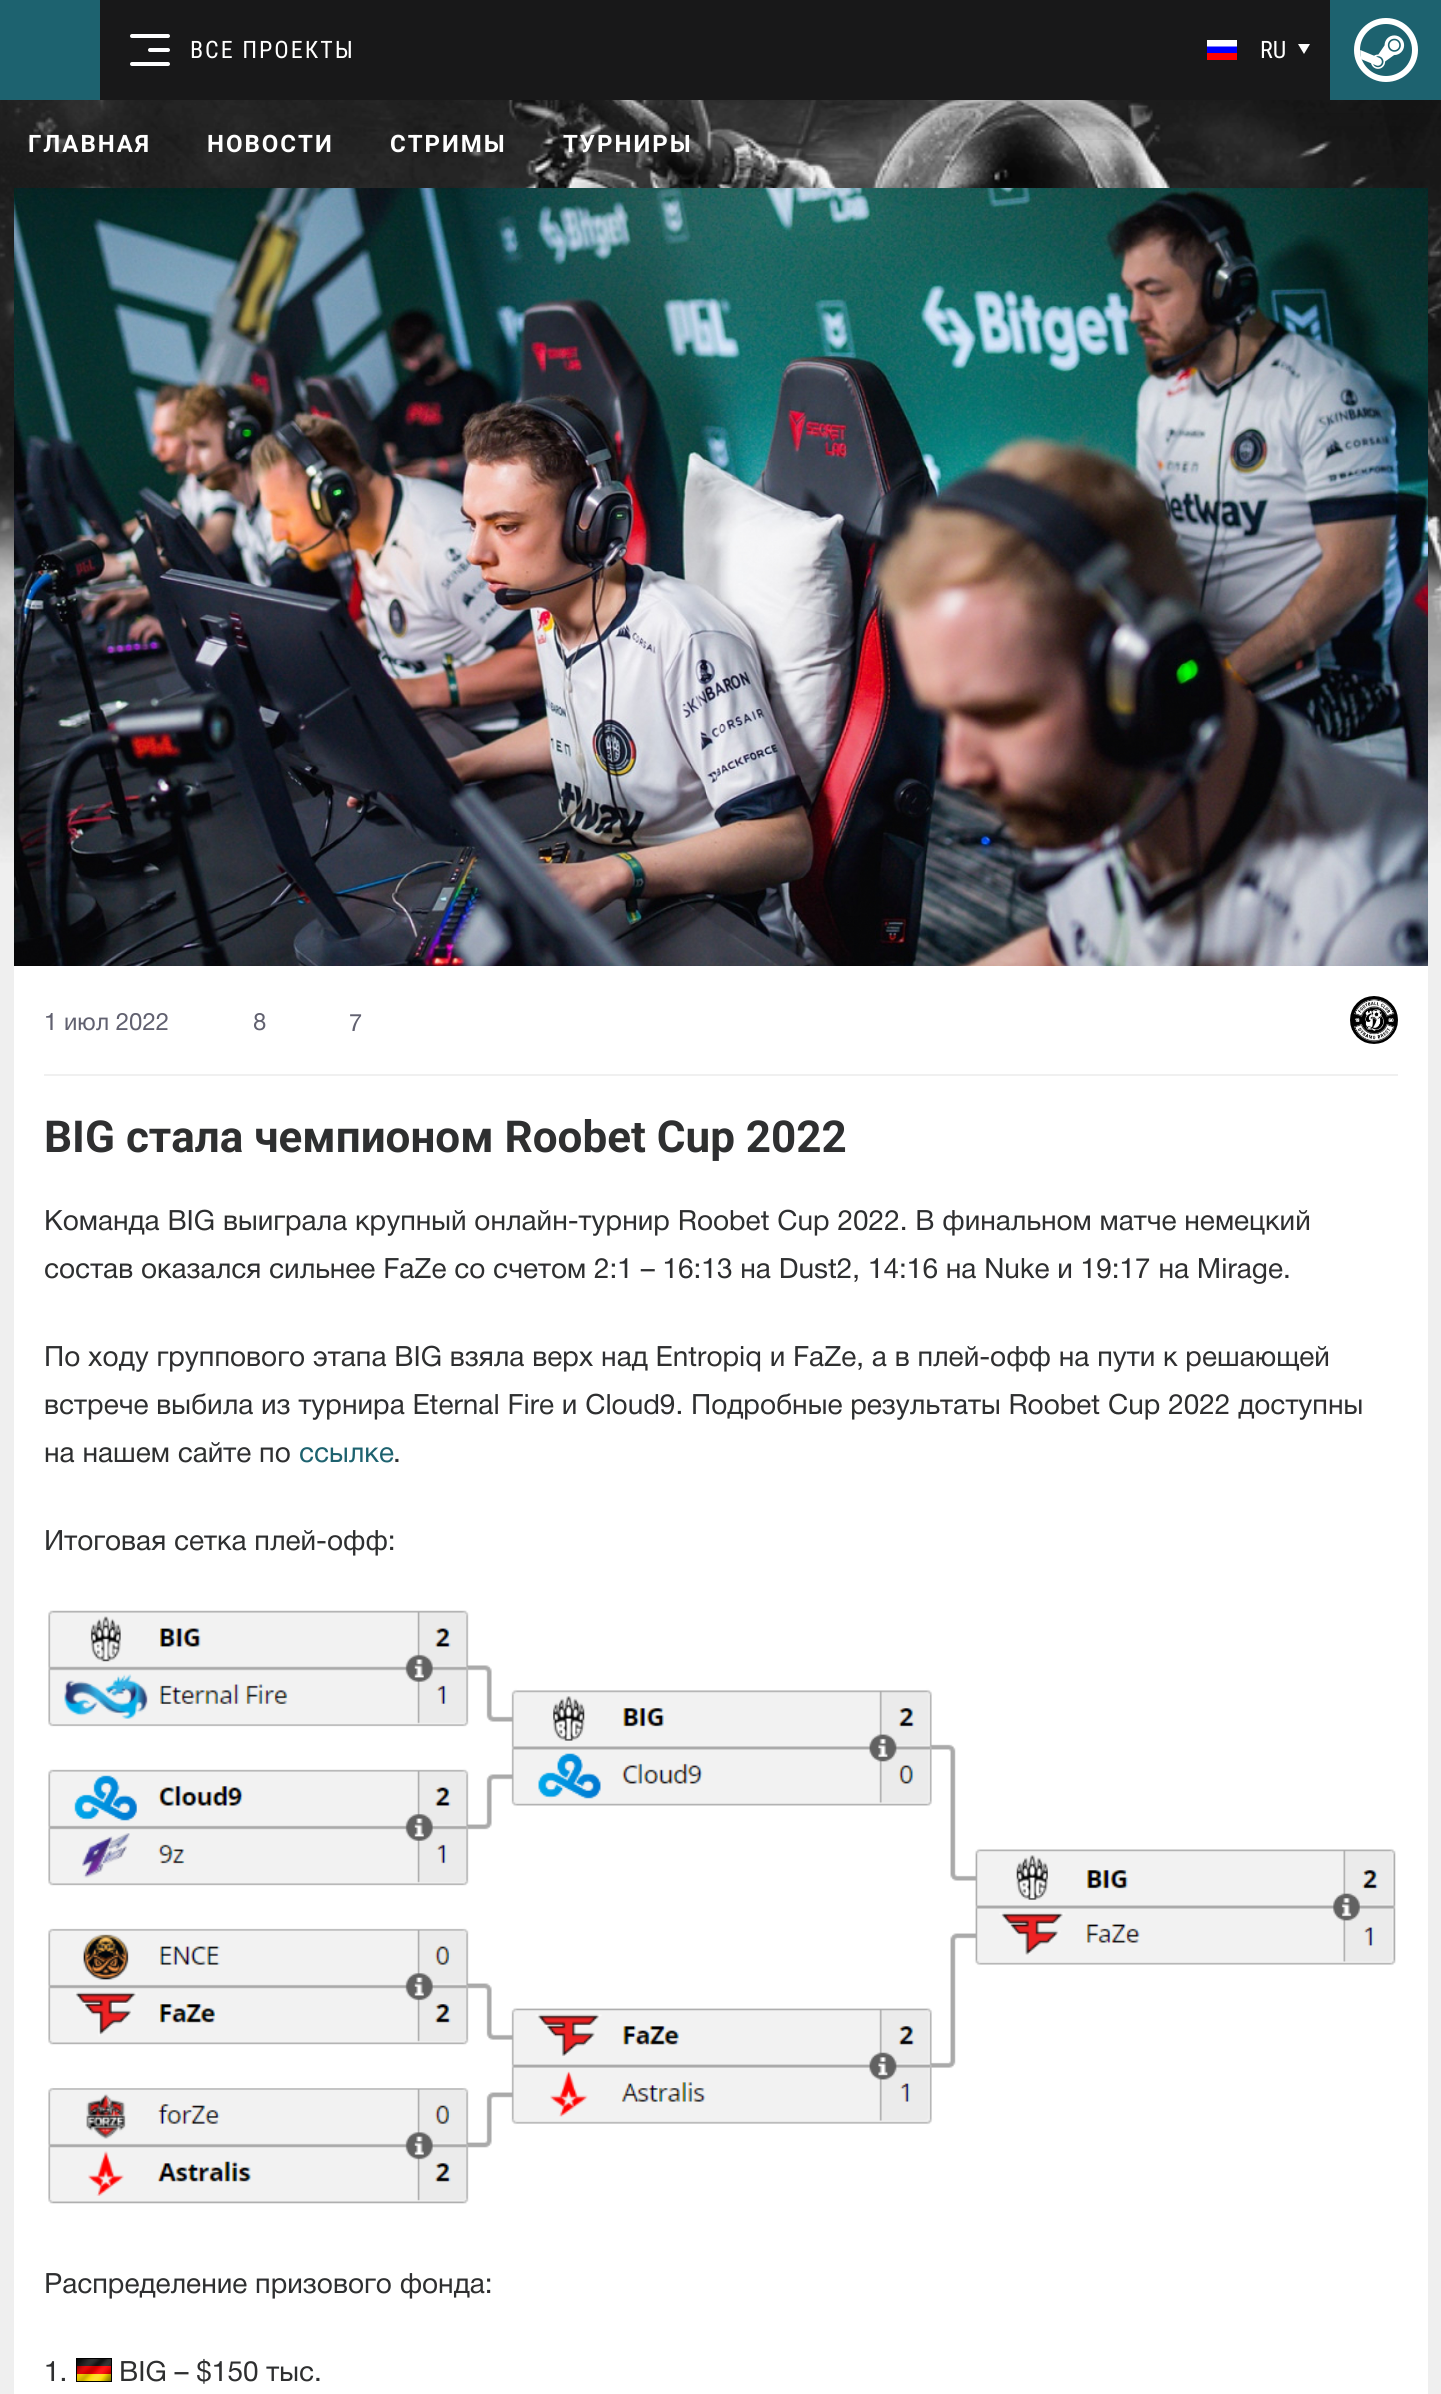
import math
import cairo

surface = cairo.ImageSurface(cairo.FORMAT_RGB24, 1441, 2394)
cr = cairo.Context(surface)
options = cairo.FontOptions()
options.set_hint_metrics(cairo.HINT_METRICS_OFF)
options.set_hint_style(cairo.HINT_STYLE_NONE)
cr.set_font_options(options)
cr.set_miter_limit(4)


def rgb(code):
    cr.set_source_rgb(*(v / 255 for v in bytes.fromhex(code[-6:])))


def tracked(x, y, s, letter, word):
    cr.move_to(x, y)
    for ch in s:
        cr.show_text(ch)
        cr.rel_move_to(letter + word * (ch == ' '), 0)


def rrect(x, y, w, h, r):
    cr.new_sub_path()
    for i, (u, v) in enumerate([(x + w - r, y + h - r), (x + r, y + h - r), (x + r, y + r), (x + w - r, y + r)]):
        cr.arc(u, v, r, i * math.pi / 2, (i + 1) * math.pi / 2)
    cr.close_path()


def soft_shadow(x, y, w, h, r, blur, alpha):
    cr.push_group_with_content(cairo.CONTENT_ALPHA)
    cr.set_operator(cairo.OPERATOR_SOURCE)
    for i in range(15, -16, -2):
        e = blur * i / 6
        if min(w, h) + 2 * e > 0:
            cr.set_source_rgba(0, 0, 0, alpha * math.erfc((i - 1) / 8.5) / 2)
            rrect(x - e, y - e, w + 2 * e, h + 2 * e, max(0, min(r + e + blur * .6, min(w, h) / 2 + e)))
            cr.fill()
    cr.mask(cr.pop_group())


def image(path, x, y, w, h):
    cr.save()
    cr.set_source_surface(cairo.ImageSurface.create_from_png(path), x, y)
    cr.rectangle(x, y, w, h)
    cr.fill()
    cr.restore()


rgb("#efefef")
cr.paint()
image("img/1.png", 0, 100, 1441, 763)
image("img/4.png", 14, 188, 1414, 778)
rgb("#1e1e1e")
soft_shadow(-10, -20, 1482, 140, 0, 40, 0.4)
rgb("#181819")
cr.rectangle(100, 0, 1230, 100)
cr.fill()
rgb("#1d626f")
cr.rectangle(0, 0, 100, 100)
cr.fill()
rgb("#ffffff")
rrect(148, 48, 22, 4, 2)
cr.fill()
rrect(130, 34, 40, 4, 2)
cr.fill()
rrect(130, 62, 40, 4, 2)
cr.fill()
image("img/2.png", 1207, 40, 30, 20)
cr.new_path()
cr.move_to(1298, 44)
cr.line_to(1310, 44)
cr.line_to(1304, 54)
cr.close_path()
cr.fill()
rgb("#1d626f")
cr.rectangle(1330, 0, 111, 100)
cr.fill()
image("img/3.png", 1354, 18, 64, 64)
rgb("#ffffff")
cr.rectangle(14, 966, 1414, 1428)
cr.fill()
rgb("#f0f0f0")
cr.rectangle(44, 1074, 1354, 2)
cr.fill()
image("img/5.png", 1350, 996, 48, 48)
image("img/6.png", 48, 1610, 1348, 594)
image("img/7.png", 76, 2358, 36, 24)
cr.select_font_face("Roboto Condensed")
cr.set_font_size(24)
rgb("#ffffff")
tracked(190, 58, "ВСЕ ПРОЕКТЫ", 2, 0)
cr.move_to(1260, 58)
cr.show_text("RU")
cr.select_font_face("Roboto", cairo.FONT_SLANT_NORMAL, cairo.FONT_WEIGHT_BOLD)
for x, y, s in [
    (28, 152, "ГЛАВНАЯ"),
    (207, 152, "НОВОСТИ"),
    (390, 152, "СТРИМЫ"),
    (563, 152, "ТУРНИРЫ"),
]:
    tracked(x, y, s, 2, 0)
cr.select_font_face("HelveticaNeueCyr")
rgb("#616170")
for x, y, s in [
    (44, 1030, "1 июл 2022"),
    (253, 1030, "8"),
    (349, 1031, "7"),
]:
    cr.move_to(x, y)
    cr.show_text(s)
cr.select_font_face("Roboto", cairo.FONT_SLANT_NORMAL, cairo.FONT_WEIGHT_BOLD)
cr.set_font_size(44)
rgb("#2e2f30")
cr.move_to(44, 1152)
cr.show_text("BIG стала чемпионом Roobet Cup 2022")
cr.select_font_face("HelveticaNeueCyr")
cr.set_font_size(28)
for x, y, s in [
    (44, 1230, "Команда BIG выиграла крупный онлайн-турнир Roobet Cup 2022. В финальном матче немецкий"),
    (44, 1278, "состав оказался сильнее FaZe со счетом 2:1 – 16:13 на Dust2, 14:16 на Nuke и 19:17 на Mirage."),
    (44, 1366, "По ходу группового этапа BIG взяла верх над Entropiq и FaZe, а в плей-офф на пути к решающей"),
    (44, 1414, "встрече выбила из турнира Eternal Fire и Cloud9. Подробные результаты Roobet Cup 2022 доступны"),
    (44, 1462, "на нашем сайте по"),
]:
    cr.move_to(x, y)
    cr.show_text(s)
rgb("#1d626f")
cr.move_to(299, 1462)
cr.show_text("ссылке")
rgb("#2e2f30")
for x, y, s in [
    (393, 1462, "."),
    (44, 1550, "Итоговая сетка плей-офф:"),
    (44, 2293, "Распределение призового фонда:"),
    (44, 2381, "1."),
    (119, 2381, "BIG – $150 тыс."),
]:
    cr.move_to(x, y)
    cr.show_text(s)
surface.write_to_png("page.png")
